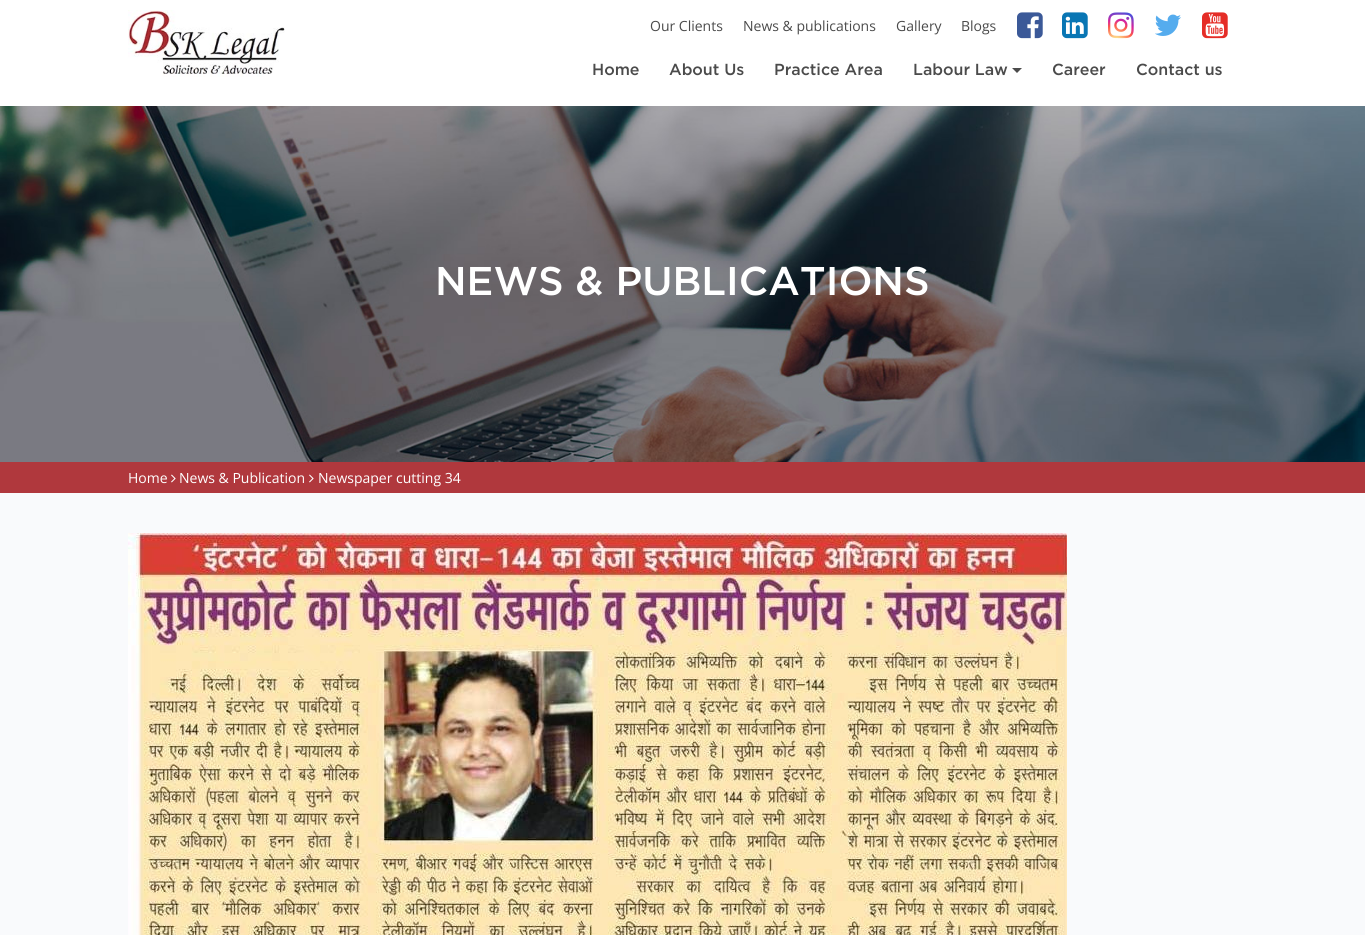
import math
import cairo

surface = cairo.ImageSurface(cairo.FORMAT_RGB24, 1365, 935)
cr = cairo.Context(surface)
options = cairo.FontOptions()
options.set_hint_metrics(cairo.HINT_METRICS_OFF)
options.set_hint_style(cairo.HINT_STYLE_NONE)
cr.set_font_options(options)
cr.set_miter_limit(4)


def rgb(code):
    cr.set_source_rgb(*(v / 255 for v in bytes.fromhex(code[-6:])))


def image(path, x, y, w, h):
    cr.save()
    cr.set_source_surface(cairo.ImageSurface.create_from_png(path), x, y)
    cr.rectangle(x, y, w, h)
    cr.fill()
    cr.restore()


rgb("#f9fafc")
cr.paint()
rgb("#ffffff")
cr.rectangle(0, 0, 1365, 106)
cr.fill()
image("img/1.png", 128, 10, 157, 67)
image("img/2.png", 1017, 12, 26, 27)
image("img/3.png", 1062, 12, 26, 27)
image("img/4.png", 1108, 12, 26, 27)
image("img/5.png", 1155, 14, 26, 22)
image("img/6.png", 1202, 12, 26, 27)
rgb("#4b4b4b")
cr.new_path()
cr.move_to(1012, 68)
cr.line_to(1022, 68)
cr.line_to(1017, 73)
cr.close_path()
cr.fill()
image("img/7.png", 0, 106, 1365, 356)
rgb("#b0383d")
cr.rectangle(0, 462, 1365, 31)
cr.fill()
image("img/8.png", 171, 474, 5, 9)
image("img/8.png", 309, 474, 5, 9)
image("img/9.png", 128, 533, 939, 402)
cr.select_font_face("Open Sans")
cr.set_font_size(14)
rgb("#4b4b4b")
for x, y, s in [
    (650, 31, "Our Clients"),
    (743, 31, "News & publications"),
    (896, 31, "Gallery"),
    (961, 31, "Blogs"),
]:
    cr.move_to(x, y)
    cr.show_text(s)
cr.select_font_face("Gotham Medium")
cr.set_font_size(16)
for x, y, s in [
    (592, 75, "Home"),
    (669, 75, "About Us"),
    (774, 75, "Practice Area"),
    (913, 75, "Labour Law"),
    (1052, 75, "Career"),
    (1136, 75, "Contact us"),
]:
    cr.move_to(x, y)
    cr.show_text(s)
cr.set_font_size(40)
rgb("#ffffff")
cr.move_to(435, 295)
cr.show_text("NEWS & PUBLICATIONS")
cr.select_font_face("Open Sans")
cr.set_font_size(14)
for x, y, s in [
    (128, 483, "Home"),
    (179, 483, "News & Publication"),
    (318, 483, "Newspaper cutting 34"),
]:
    cr.move_to(x, y)
    cr.show_text(s)
surface.write_to_png("page.png")
